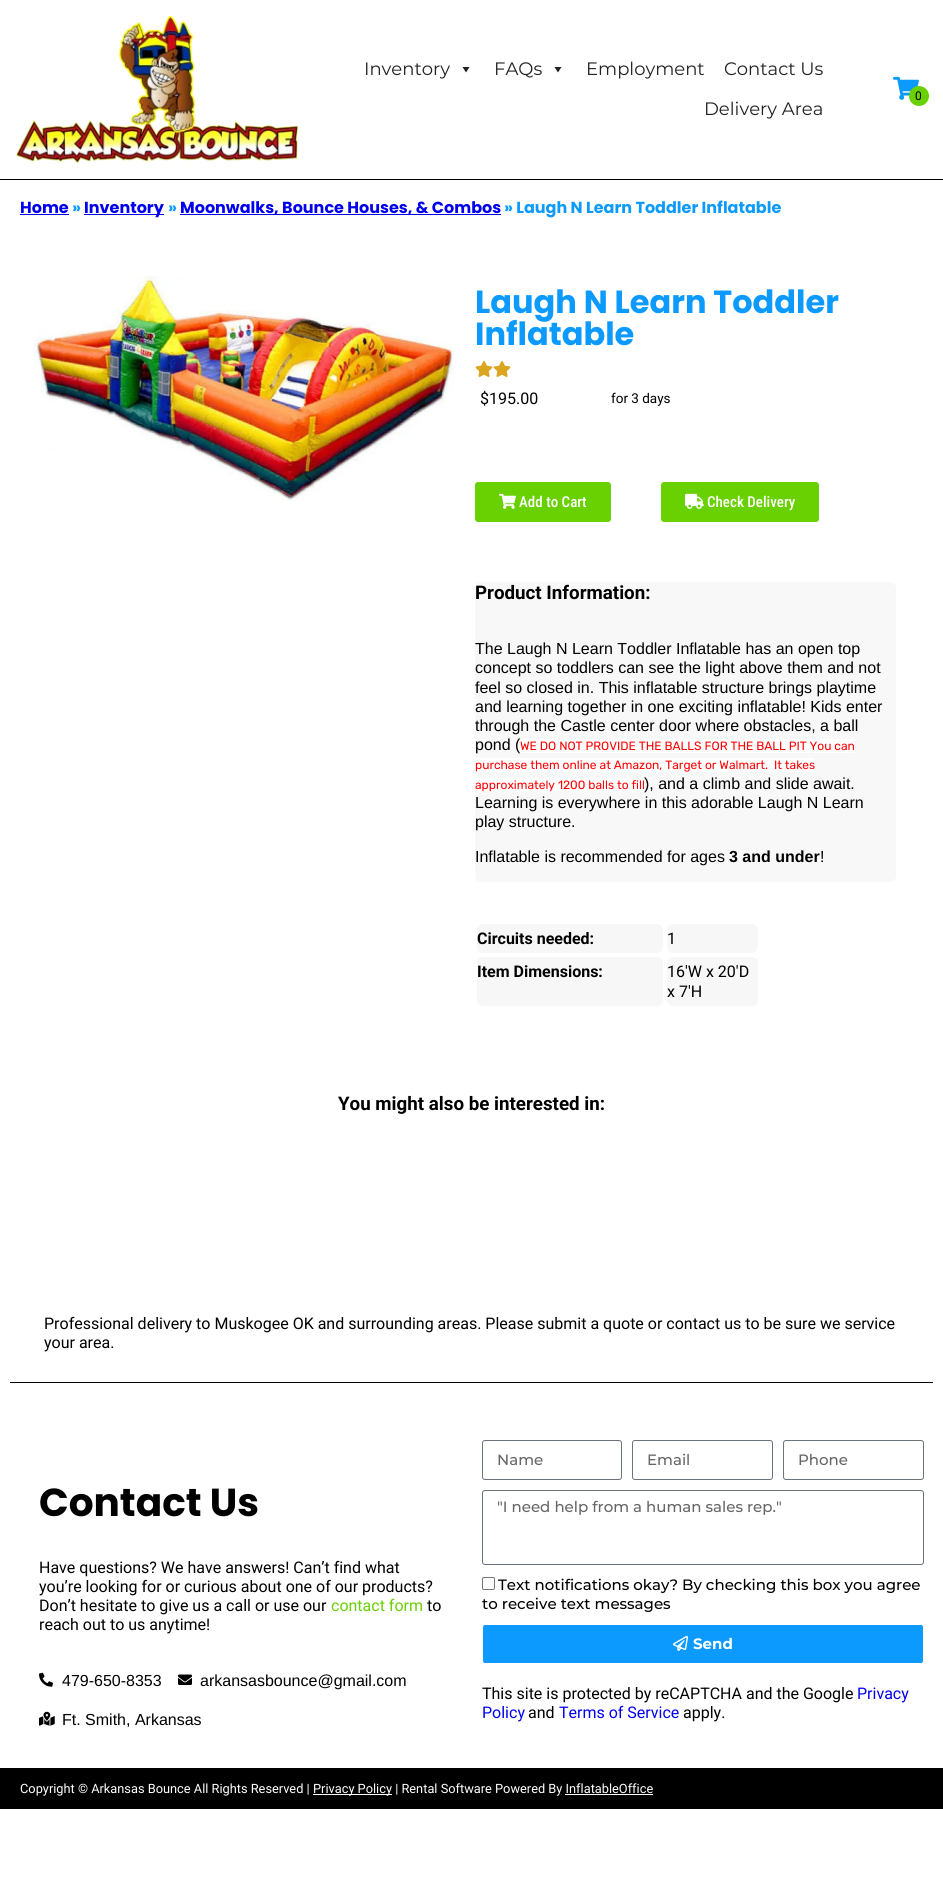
import math
import cairo

surface = cairo.ImageSurface(cairo.FORMAT_RGB24, 943, 1880)
cr = cairo.Context(surface)
options = cairo.FontOptions()
options.set_hint_metrics(cairo.HINT_METRICS_OFF)
options.set_hint_style(cairo.HINT_STYLE_NONE)
cr.set_font_options(options)
cr.set_miter_limit(4)


def rgb(code):
    cr.set_source_rgb(*(v / 255 for v in bytes.fromhex(code[-6:])))


def rrect(x, y, w, h, r):
    cr.new_sub_path()
    for i, (u, v) in enumerate([(x + w - r, y + h - r), (x + r, y + h - r), (x + r, y + r), (x + w - r, y + r)]):
        cr.arc(u, v, r, i * math.pi / 2, (i + 1) * math.pi / 2)
    cr.close_path()


def image(path, x, y, w, h):
    cr.save()
    cr.set_source_surface(cairo.ImageSurface.create_from_png(path), x, y)
    cr.rectangle(x, y, w, h)
    cr.fill()
    cr.restore()


rgb("#ffffff")
cr.paint()
image("img/1.png", 16, 16, 282, 147)
rgb("#222222")
cr.new_path()
cr.move_to(469.5, 67)
cr.line_to(466, 72.5)
cr.line_to(462.5, 67)
cr.close_path()
cr.fill()
cr.new_path()
cr.move_to(561.5, 67)
cr.line_to(558, 72.5)
cr.line_to(554.5, 67)
cr.close_path()
cr.fill()
image("img/2.png", 893, 76, 26, 24)
rgb("#69d002")
cr.arc(919, 96, 10, 0, 2 * math.pi)
cr.fill()
for x, y, w, h, color in [
    (0, 179, 943, 1, "#000000"),
    (20, 214, 49, 1, "#0000ee"),
    (84, 214, 80, 1, "#0000ee"),
    (180, 214, 321, 1, "#0000ee"),
]:
    rgb(color)
    cr.rectangle(x, y, w, h)
    cr.fill()
image("img/3.png", 34, 276, 420, 225)
image("img/4.png", 475, 361, 18, 16)
image("img/4.png", 493, 361, 18, 16)
rgb("#69d002")
rrect(475, 482, 136, 40, 3)
cr.fill()
image("img/5.png", 499, 493, 17, 16)
rrect(661, 482, 158, 40, 3)
cr.fill()
image("img/6.png", 685, 493, 19, 16)
rgb("#f8f8f8")
rrect(475, 582, 421, 300, 6)
cr.fill()
for x, y, w, h, color in [
    (520, 739, 335, 14, "#ffffff"),
    (475, 758, 340, 14, "#ffffff"),
    (475, 778, 169, 14, "#ffffff"),
]:
    rgb(color)
    cr.rectangle(x, y, w, h)
    cr.fill()
rgb("#f7f7f7")
rrect(477, 924, 186, 29, 6)
cr.fill()
rrect(667, 924, 91, 29, 6)
cr.fill()
rrect(477, 957, 186, 49, 6)
cr.fill()
rrect(667, 957, 91, 49, 6)
cr.fill()
rgb("#000000")
cr.rectangle(10, 1382, 923, 1)
cr.fill()
image("img/7.png", 39, 1672, 14, 15)
image("img/8.png", 178, 1674, 14, 11)
image("img/9.png", 39, 1711, 16, 15)
rrect(482.5, 1440.5, 139, 39, 2.5)
rgb("#69727d")
cr.set_line_width(1)
cr.stroke()
rrect(632.5, 1440.5, 140, 39, 2.5)
cr.stroke()
rrect(783.5, 1440.5, 140, 39, 2.5)
cr.stroke()
rrect(482.5, 1490.5, 441, 74, 2.5)
cr.stroke()
rrect(482.5, 1577.5, 12, 12, 1.5)
rgb("#767676")
cr.stroke()
rgb("#0c9aff")
rrect(482.5, 1624.5, 441, 39, 2.5)
cr.fill_preserve()
rgb("#ffffff")
cr.stroke()
image("img/10.png", 673, 1635, 15, 16)
for x, y, w, h, color in [
    (0, 1768, 943, 41, "#000000"),
    (313, 1794, 79, 1, "#ffffff"),
    (565, 1794, 88, 1, "#ffffff"),
]:
    rgb(color)
    cr.rectangle(x, y, w, h)
    cr.fill()
cr.select_font_face("Montserrat")
cr.set_font_size(18)
rgb("#222222")
for x, y, s in [
    (364, 75, "Inventory"),
    (494, 75, "FAQs"),
    (586, 75, "Employment"),
    (724, 75, "Contact Us"),
    (704, 115, "Delivery Area"),
]:
    cr.move_to(x, y)
    cr.show_text(s)
cr.select_font_face("Roboto")
cr.set_font_size(12)
rgb("#000000")
cr.move_to(915, 100)
cr.show_text("0")
cr.select_font_face("Poppins", cairo.FONT_SLANT_NORMAL, cairo.FONT_WEIGHT_BOLD)
cr.set_font_size(16)
rgb("#0000ee")
cr.move_to(20, 213)
cr.show_text("Home")
rgb("#0c9aff")
cr.move_to(72, 213)
cr.show_text("»")
rgb("#0000ee")
cr.move_to(84, 213)
cr.show_text("Inventory")
rgb("#0c9aff")
cr.move_to(168, 213)
cr.show_text("»")
rgb("#0000ee")
cr.move_to(180, 213)
cr.show_text("Moonwalks, Bounce Houses, & Combos")
rgb("#0c9aff")
cr.move_to(504, 213)
cr.show_text("» Laugh N Learn Toddler Inflatable")
cr.set_font_size(32)
cr.move_to(475, 313)
cr.show_text("Laugh N Learn Toddler")
cr.move_to(475, 345)
cr.show_text("Inflatable")
cr.select_font_face("Roboto")
cr.set_font_size(16)
rgb("#000000")
cr.move_to(480, 404)
cr.show_text("$195.00")
cr.set_font_size(13.5)
cr.move_to(611, 403)
cr.show_text("for 3 days")
cr.select_font_face("Roboto Condensed Medium")
cr.set_font_size(15)
rgb("#ffffff")
cr.move_to(519, 507)
cr.show_text("Add to Cart")
cr.move_to(707, 507)
cr.show_text("Check Delivery")
cr.select_font_face("Roboto", cairo.FONT_SLANT_NORMAL, cairo.FONT_WEIGHT_BOLD)
cr.set_font_size(18.75)
rgb("#000000")
cr.move_to(475, 599)
cr.show_text("Product Information:")
cr.select_font_face("Liberation Sans")
cr.set_font_size(16)
for x, y, s in [
    (475, 654, "The Laugh N Learn Toddler Inflatable has an open top"),
    (475, 673, "concept so toddlers can see the light above them and not"),
    (475, 693, "feel so closed in. This inflatable structure brings playtime"),
    (475, 712, "and learning together in one exciting inflatable! Kids enter"),
    (475, 731, "through the Castle center door where obstacles, a ball"),
    (475, 750, "pond ("),
]:
    cr.move_to(x, y)
    cr.show_text(s)
cr.select_font_face("Rubik")
cr.set_font_size(12)
rgb("#ff0000")
for x, y, s in [
    (520, 750, "WE DO NOT PROVIDE THE BALLS FOR THE BALL PIT You can"),
    (475, 769, "purchase them online at Amazon, Target or Walmart.  It takes"),
    (475, 789, "approximately 1200 balls to fill"),
]:
    cr.move_to(x, y)
    cr.show_text(s)
cr.select_font_face("Liberation Sans")
cr.set_font_size(16)
rgb("#000000")
for x, y, s in [
    (644, 789, "), and a climb and slide await."),
    (475, 808, "Learning is everywhere in this adorable Laugh N Learn"),
    (475, 827, "play structure."),
    (475, 862, "Inflatable is recommended for ages"),
]:
    cr.move_to(x, y)
    cr.show_text(s)
cr.select_font_face("Liberation Sans", cairo.FONT_SLANT_NORMAL, cairo.FONT_WEIGHT_BOLD)
cr.move_to(729, 862)
cr.show_text("3 and under")
cr.select_font_face("Liberation Sans")
cr.move_to(820, 862)
cr.show_text("!")
cr.select_font_face("Roboto", cairo.FONT_SLANT_NORMAL, cairo.FONT_WEIGHT_BOLD)
cr.move_to(477, 944)
cr.show_text("Circuits needed:")
cr.select_font_face("Roboto")
cr.move_to(667, 944)
cr.show_text("1")
cr.select_font_face("Roboto", cairo.FONT_SLANT_NORMAL, cairo.FONT_WEIGHT_BOLD)
cr.move_to(477, 977)
cr.show_text("Item Dimensions:")
cr.select_font_face("Roboto")
cr.move_to(667, 977)
cr.show_text("16'W x 20'D")
cr.move_to(667, 997)
cr.show_text("x 7'H")
cr.select_font_face("Roboto", cairo.FONT_SLANT_NORMAL, cairo.FONT_WEIGHT_BOLD)
cr.set_font_size(18.75)
cr.move_to(338, 1110)
cr.show_text("You might also be interested in:")
cr.select_font_face("Roboto")
cr.set_font_size(16)
cr.move_to(44, 1329)
cr.show_text("Professional delivery to Muskogee OK and surrounding areas. Please submit a quote or contact us to be sure we service")
cr.move_to(44, 1348)
cr.show_text("your area.")
cr.select_font_face("Poppins", cairo.FONT_SLANT_NORMAL, cairo.FONT_WEIGHT_BOLD)
cr.set_font_size(39)
cr.move_to(39, 1516)
cr.show_text("Contact Us")
cr.select_font_face("Roboto")
cr.set_font_size(16)
for x, y, s in [
    (39, 1573, "Have questions? We have answers! Can’t find what"),
    (39, 1592, "you’re looking for or curious about one of our products?"),
    (39, 1611, "Don’t hesitate to give us a call or use our"),
]:
    cr.move_to(x, y)
    cr.show_text(s)
rgb("#69d002")
cr.move_to(331, 1611)
cr.show_text("contact form")
rgb("#000000")
cr.move_to(427, 1611)
cr.show_text("to")
cr.move_to(39, 1630)
cr.show_text("reach out to us anytime!")
cr.select_font_face("Liberation Sans")
for x, y, s in [
    (62, 1686, "479-650-8353"),
    (200, 1686, "arkansasbounce@gmail.com"),
    (62, 1725, "Ft. Smith, Arkansas"),
]:
    cr.move_to(x, y)
    cr.show_text(s)
cr.select_font_face("Montserrat Medium")
cr.set_font_size(15)
rgb("#666666")
for x, y, s in [
    (497, 1465, "Name"),
    (647, 1465, "Email"),
    (798, 1465, "Phone"),
    (497, 1512, "\"I need help from a human sales rep.\""),
]:
    cr.move_to(x, y)
    cr.show_text(s)
rgb("#000000")
cr.move_to(498, 1590)
cr.show_text("Text notifications okay? By checking this box you agree")
cr.move_to(482, 1609)
cr.show_text("to receive text messages")
cr.select_font_face("Montserrat", cairo.FONT_SLANT_NORMAL, cairo.FONT_WEIGHT_BOLD)
rgb("#ffffff")
cr.move_to(693, 1649)
cr.show_text("Send")
cr.select_font_face("Roboto")
cr.set_font_size(16)
rgb("#000000")
cr.move_to(482, 1699)
cr.show_text("This site is protected by reCAPTCHA and the Google")
rgb("#0000ee")
cr.move_to(857, 1699)
cr.show_text("Privacy")
cr.move_to(482, 1718)
cr.show_text("Policy")
rgb("#000000")
cr.move_to(528, 1718)
cr.show_text("and")
rgb("#0000ee")
cr.move_to(559, 1718)
cr.show_text("Terms of Service")
rgb("#000000")
cr.move_to(683, 1718)
cr.show_text("apply.")
cr.set_font_size(12.8)
rgb("#ffffff")
cr.move_to(20, 1793)
cr.show_text("Copyright © Arkansas Bounce All Rights Reserved |")
cr.move_to(313, 1793)
cr.show_text("Privacy Policy | Rental Software Powered By InflatableOffice")
surface.write_to_png("page.png")
